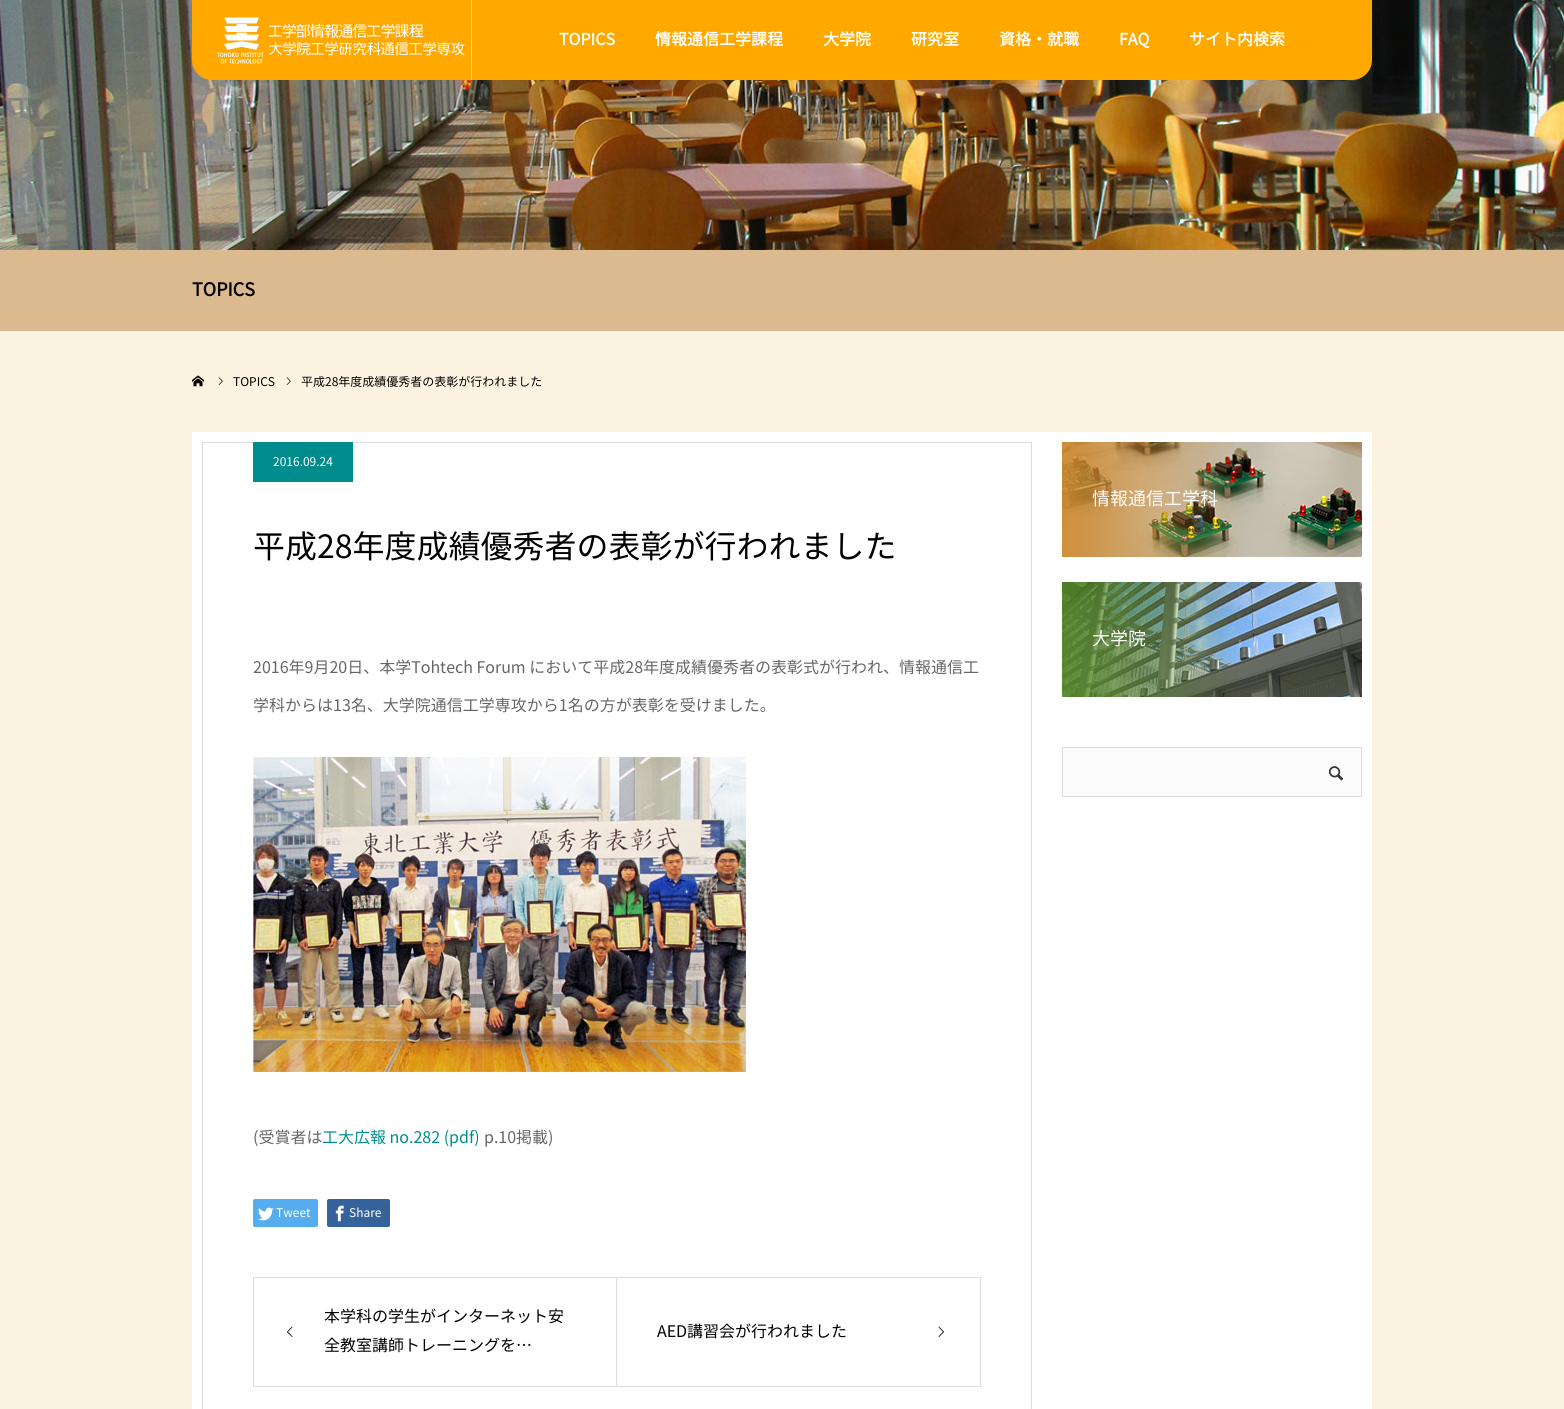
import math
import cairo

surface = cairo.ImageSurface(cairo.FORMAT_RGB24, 1564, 1409)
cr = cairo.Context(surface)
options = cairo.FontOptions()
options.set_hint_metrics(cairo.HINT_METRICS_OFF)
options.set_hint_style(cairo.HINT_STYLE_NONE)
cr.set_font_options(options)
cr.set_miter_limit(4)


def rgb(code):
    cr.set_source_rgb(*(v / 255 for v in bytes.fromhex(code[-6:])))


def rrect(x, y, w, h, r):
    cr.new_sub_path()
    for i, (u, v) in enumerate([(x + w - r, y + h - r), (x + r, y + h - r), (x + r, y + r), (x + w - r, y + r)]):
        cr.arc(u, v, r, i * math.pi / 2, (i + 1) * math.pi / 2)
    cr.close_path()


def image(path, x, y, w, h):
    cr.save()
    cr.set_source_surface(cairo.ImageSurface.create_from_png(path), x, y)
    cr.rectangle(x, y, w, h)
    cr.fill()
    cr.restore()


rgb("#fbf2e0")
cr.paint()
image("img/2.png", 0, 0, 1564, 250)
rgb("#ffa800")
cr.new_path()
cr.move_to(192, 0)
cr.line_to(1372, 0)
cr.line_to(1372, 60)
cr.curve_to(1372, 71, 1363, 80, 1352, 80)
cr.line_to(212, 80)
cr.curve_to(201, 80, 192, 71, 192, 60)
cr.close_path()
cr.fill()
rgb("#dddddd")
cr.rectangle(471, 0, 1, 80)
cr.fill()
image("img/1.png", 217, 17, 248, 47)
rgb("#dbba90")
cr.rectangle(0, 250, 1564, 81)
cr.fill()
image("img/3.png", 192, 375, 12, 12)
image("img/4.png", 218, 377, 5, 8)
image("img/4.png", 286, 377, 5, 8)
rgb("#ffffff")
cr.rectangle(192, 432, 1180, 977)
cr.fill()
cr.rectangle(202.5, 442.5, 829, 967)
rgb("#dddddd")
cr.set_line_width(1)
cr.stroke()
rgb("#008c8c")
cr.rectangle(253, 442, 100, 40)
cr.fill()
image("img/5.png", 253, 757, 493, 315)
rgb("#f7f7f7")
cr.new_path()
cr.move_to(253, 1225)
cr.curve_to(253, 1231, 261, 1228, 265, 1228)
cr.line_to(306, 1228)
cr.curve_to(310, 1228, 318, 1231, 318, 1225)
cr.line_to(317, 1227)
cr.line_to(265, 1227)
cr.curve_to(261, 1227, 253, 1229, 253, 1225)
cr.close_path()
cr.fill()
rgb("#55acee")
rrect(253, 1199, 65, 28, 2)
cr.fill()
image("img/6.png", 258, 1207, 16, 14)
rgb("#f7f7f7")
cr.new_path()
cr.move_to(327, 1225)
cr.curve_to(327, 1231, 335, 1228, 339, 1228)
cr.line_to(378, 1228)
cr.curve_to(382, 1228, 390, 1231, 390, 1225)
cr.line_to(389, 1227)
cr.line_to(339, 1227)
cr.curve_to(335, 1227, 327, 1229, 327, 1225)
cr.close_path()
cr.fill()
rgb("#35629a")
rrect(327, 1199, 63, 28, 2)
cr.fill()
image("img/7.png", 335, 1205, 9, 17)
cr.rectangle(253.5, 1277.5, 363, 109)
rgb("#dddddd")
cr.stroke()
image("img/8.png", 287, 1326, 6, 11)
for x, y, w, h, color in [
    (617, 1277, 364, 1, "#dddddd"),
    (980, 1277, 1, 110, "#dddddd"),
    (617, 1386, 364, 1, "#dddddd"),
]:
    rgb(color)
    cr.rectangle(x, y, w, h)
    cr.fill()
image("img/9.png", 938, 1326, 6, 11)
image("img/10.png", 1062, 442, 300, 115)
image("img/11.png", 1062, 582, 300, 115)
rgb("#fbfbfb")
cr.rectangle(1062.5, 747.5, 299, 49)
cr.fill_preserve()
rgb("#dddddd")
cr.stroke()
image("img/12.png", 1328, 766, 16, 15)
cr.select_font_face("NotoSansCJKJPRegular", cairo.FONT_SLANT_NORMAL, cairo.FONT_WEIGHT_BOLD)
cr.set_font_size(16)
rgb("#ffffff")
for x, y, s in [
    (559, 45, "TOPICS"),
    (655, 45, "情報通信工学課程"),
    (823, 45, "大学院"),
    (911, 45, "研究室"),
    (999, 45, "資格・就職"),
    (1119, 45, "FAQ"),
    (1189, 45, "サイト内検索"),
]:
    cr.move_to(x, y)
    cr.show_text(s)
cr.set_font_size(18)
rgb("#000000")
cr.move_to(192, 296)
cr.show_text("TOPICS")
cr.select_font_face("NotoSansCJKJPRegular")
cr.set_font_size(12)
cr.move_to(233, 386)
cr.show_text("TOPICS")
cr.move_to(301, 386)
cr.show_text("平成28年度成績優秀者の表彰が行われました")
rgb("#ffffff")
cr.move_to(273, 466)
cr.show_text("2016.09.24")
cr.set_font_size(32)
rgb("#000000")
cr.move_to(253, 558)
cr.show_text("平成28年度成績優秀者の表彰が行われました")
cr.set_font_size(16)
rgb("#666666")
for x, y, s in [
    (253, 673, "2016年9月20日、本学Tohtech Forum において平成28年度成績優秀者の表彰式が行われ、情報通信工"),
    (253, 711, "学科からは13名、大学院通信工学専攻から1名の方が表彰を受けました。"),
    (253, 1143, "(受賞者は"),
]:
    cr.move_to(x, y)
    cr.show_text(s)
rgb("#008c8d")
cr.move_to(322, 1143)
cr.show_text("工大広報 no.282 (pdf)")
rgb("#666666")
cr.move_to(484, 1143)
cr.show_text("p.10掲載)")
cr.set_font_size(12)
rgb("#ffffff")
cr.move_to(276, 1217)
cr.show_text("Tweet")
cr.move_to(349, 1217)
cr.show_text("Share")
cr.set_font_size(16)
rgb("#000000")
for x, y, s in [
    (324, 1322, "本学科の学生がインターネット安"),
    (324, 1351, "全教室講師トレーニングを…"),
    (657, 1337, "AED講習会が行われました"),
]:
    cr.move_to(x, y)
    cr.show_text(s)
cr.set_font_size(18)
rgb("#ffffff")
cr.move_to(1092, 505)
cr.show_text("情報通信工学科")
cr.move_to(1092, 645)
cr.show_text("大学院")
surface.write_to_png("page.png")
